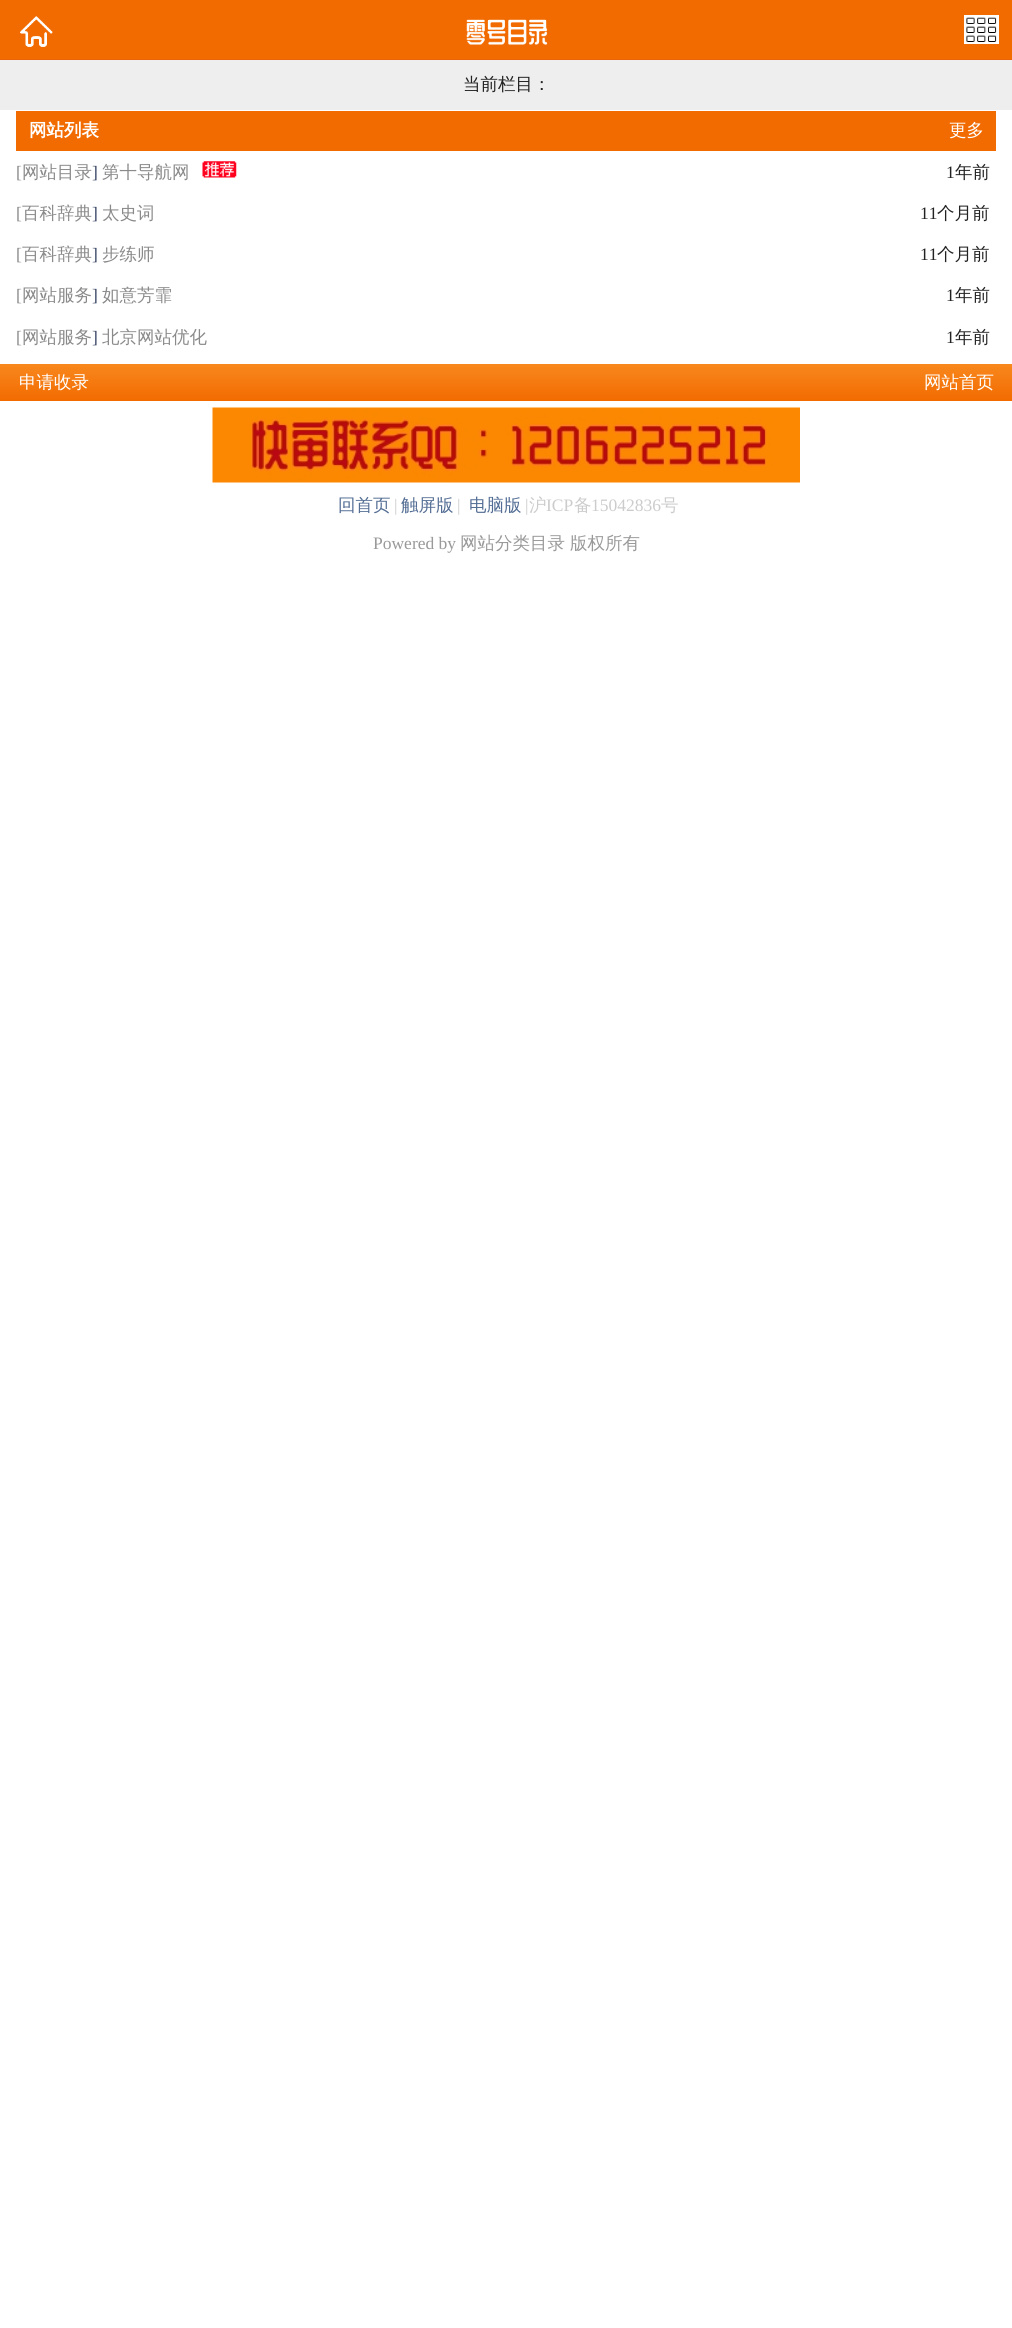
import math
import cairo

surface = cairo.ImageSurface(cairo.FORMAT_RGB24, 1012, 2328)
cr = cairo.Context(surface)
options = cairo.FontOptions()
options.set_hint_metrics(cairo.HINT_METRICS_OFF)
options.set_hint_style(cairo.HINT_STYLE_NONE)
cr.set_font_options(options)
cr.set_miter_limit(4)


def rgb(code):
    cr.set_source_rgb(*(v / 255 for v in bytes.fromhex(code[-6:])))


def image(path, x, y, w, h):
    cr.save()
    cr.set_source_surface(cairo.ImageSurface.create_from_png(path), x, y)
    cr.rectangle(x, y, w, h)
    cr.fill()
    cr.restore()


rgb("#ffffff")
cr.paint()
rgb("#f26b01")
cr.rectangle(0, 0, 1012, 59)
cr.fill()
rgb("#eb640a")
cr.rectangle(0, 59, 1012, 1)
cr.fill()
image("img/1.png", 20, 16, 33, 31)
image("img/2.png", 466, 19, 82, 26)
rgb("#ffffff")
cr.rectangle(964, 15, 35, 29)
cr.fill()
image("img/3.png", 966, 17, 31, 25)
rgb("#eeeeee")
cr.rectangle(0, 60, 1012, 50)
cr.fill()
rgb("#f26b01")
cr.rectangle(16, 111, 980, 40)
cr.fill()
image("img/4.png", 202, 161, 35, 17)
gradient = cairo.LinearGradient(0, 364, 0, 401)
gradient.add_color_stop_rgba(0, 0.973, 0.533, 0.114, 1)
gradient.add_color_stop_rgba(1, 0.949, 0.42, 0.004, 1)
cr.set_source(gradient)
cr.rectangle(0, 364, 1012, 37)
cr.fill()
image("img/5.png", 212, 407, 588, 76)
cr.select_font_face("WenQuanYi Zen Hei Medium")
cr.set_font_size(17.5)
rgb("#222222")
cr.move_to(463, 90)
cr.show_text("当前栏目：")
cr.select_font_face("WenQuanYi Zen Hei", cairo.FONT_SLANT_NORMAL, cairo.FONT_WEIGHT_BOLD)
rgb("#ffffff")
cr.move_to(29, 136)
cr.show_text("网站列表")
cr.select_font_face("WenQuanYi Zen Hei Medium")
cr.move_to(949, 136)
cr.show_text("更多")
cr.select_font_face("Liberation Serif")
rgb("#8a8a8a")
cr.move_to(16, 178)
cr.show_text("[")
cr.select_font_face("WenQuanYi Zen Hei Medium")
cr.move_to(22, 178)
cr.show_text("网站目录")
cr.select_font_face("Liberation Serif")
rgb("#374565")
cr.move_to(92, 178)
cr.show_text("]")
cr.select_font_face("WenQuanYi Zen Hei Medium")
rgb("#8a8a8a")
cr.move_to(102, 178)
cr.show_text("第十导航网")
cr.select_font_face("Liberation Serif")
rgb("#222222")
cr.move_to(946, 178)
cr.show_text("1")
cr.select_font_face("WenQuanYi Zen Hei Medium")
cr.move_to(955, 178)
cr.show_text("年前")
cr.select_font_face("Liberation Serif")
rgb("#8a8a8a")
cr.move_to(16, 219)
cr.show_text("[")
cr.select_font_face("WenQuanYi Zen Hei Medium")
cr.move_to(22, 219)
cr.show_text("百科辞典")
cr.select_font_face("Liberation Serif")
rgb("#374565")
cr.move_to(92, 219)
cr.show_text("]")
cr.select_font_face("WenQuanYi Zen Hei Medium")
rgb("#8a8a8a")
cr.move_to(102, 219)
cr.show_text("太史词")
cr.select_font_face("Liberation Serif")
rgb("#222222")
cr.move_to(920, 219)
cr.show_text("11")
cr.select_font_face("WenQuanYi Zen Hei Medium")
cr.move_to(937, 219)
cr.show_text("个月前")
cr.select_font_face("Liberation Serif")
rgb("#8a8a8a")
cr.move_to(16, 260)
cr.show_text("[")
cr.select_font_face("WenQuanYi Zen Hei Medium")
cr.move_to(22, 260)
cr.show_text("百科辞典")
cr.select_font_face("Liberation Serif")
rgb("#374565")
cr.move_to(92, 260)
cr.show_text("]")
cr.select_font_face("WenQuanYi Zen Hei Medium")
rgb("#8a8a8a")
cr.move_to(102, 260)
cr.show_text("步练师")
cr.select_font_face("Liberation Serif")
rgb("#222222")
cr.move_to(920, 260)
cr.show_text("11")
cr.select_font_face("WenQuanYi Zen Hei Medium")
cr.move_to(937, 260)
cr.show_text("个月前")
cr.select_font_face("Liberation Serif")
rgb("#8a8a8a")
cr.move_to(16, 301)
cr.show_text("[")
cr.select_font_face("WenQuanYi Zen Hei Medium")
cr.move_to(22, 301)
cr.show_text("网站服务")
cr.select_font_face("Liberation Serif")
rgb("#374565")
cr.move_to(92, 301)
cr.show_text("]")
cr.select_font_face("WenQuanYi Zen Hei Medium")
rgb("#8a8a8a")
cr.move_to(102, 301)
cr.show_text("如意芳霏")
cr.select_font_face("Liberation Serif")
rgb("#222222")
cr.move_to(946, 301)
cr.show_text("1")
cr.select_font_face("WenQuanYi Zen Hei Medium")
cr.move_to(955, 301)
cr.show_text("年前")
cr.select_font_face("Liberation Serif")
rgb("#8a8a8a")
cr.move_to(16, 343)
cr.show_text("[")
cr.select_font_face("WenQuanYi Zen Hei Medium")
cr.move_to(22, 343)
cr.show_text("网站服务")
cr.select_font_face("Liberation Serif")
rgb("#374565")
cr.move_to(92, 343)
cr.show_text("]")
cr.select_font_face("WenQuanYi Zen Hei Medium")
rgb("#8a8a8a")
cr.move_to(102, 343)
cr.show_text("北京网站优化")
cr.select_font_face("Liberation Serif")
rgb("#222222")
cr.move_to(946, 343)
cr.show_text("1")
cr.select_font_face("WenQuanYi Zen Hei Medium")
cr.move_to(955, 343)
cr.show_text("年前")
rgb("#ffffff")
cr.move_to(19, 388)
cr.show_text("申请收录")
cr.move_to(924, 388)
cr.show_text("网站首页")
rgb("#536d94")
cr.move_to(338, 511)
cr.show_text("回首页")
cr.select_font_face("Liberation Serif")
rgb("#cccccc")
cr.move_to(394, 511)
cr.show_text("|")
cr.select_font_face("WenQuanYi Zen Hei Medium")
rgb("#536d94")
cr.move_to(401, 511)
cr.show_text("触屏版")
cr.select_font_face("Liberation Serif")
rgb("#cccccc")
cr.move_to(457, 511)
cr.show_text("|")
cr.select_font_face("WenQuanYi Zen Hei Medium")
rgb("#536d94")
cr.move_to(469, 511)
cr.show_text("电脑版")
cr.select_font_face("Liberation Serif")
rgb("#cccccc")
cr.move_to(525, 511)
cr.show_text("|")
cr.select_font_face("WenQuanYi Zen Hei Medium")
cr.move_to(529, 511)
cr.show_text("沪")
cr.select_font_face("Liberation Serif")
cr.move_to(546, 511)
cr.show_text("ICP")
cr.select_font_face("WenQuanYi Zen Hei Medium")
cr.move_to(574, 511)
cr.show_text("备")
cr.select_font_face("Liberation Serif")
cr.move_to(591, 511)
cr.show_text("15042836")
cr.select_font_face("WenQuanYi Zen Hei Medium")
cr.move_to(661, 511)
cr.show_text("号")
cr.select_font_face("Liberation Serif")
rgb("#999999")
cr.move_to(373, 549)
cr.show_text("Powered by")
cr.select_font_face("WenQuanYi Zen Hei Medium")
cr.move_to(460, 549)
cr.show_text("网站分类目录")
cr.move_to(570, 549)
cr.show_text("版权所有")
surface.write_to_png("page.png")
